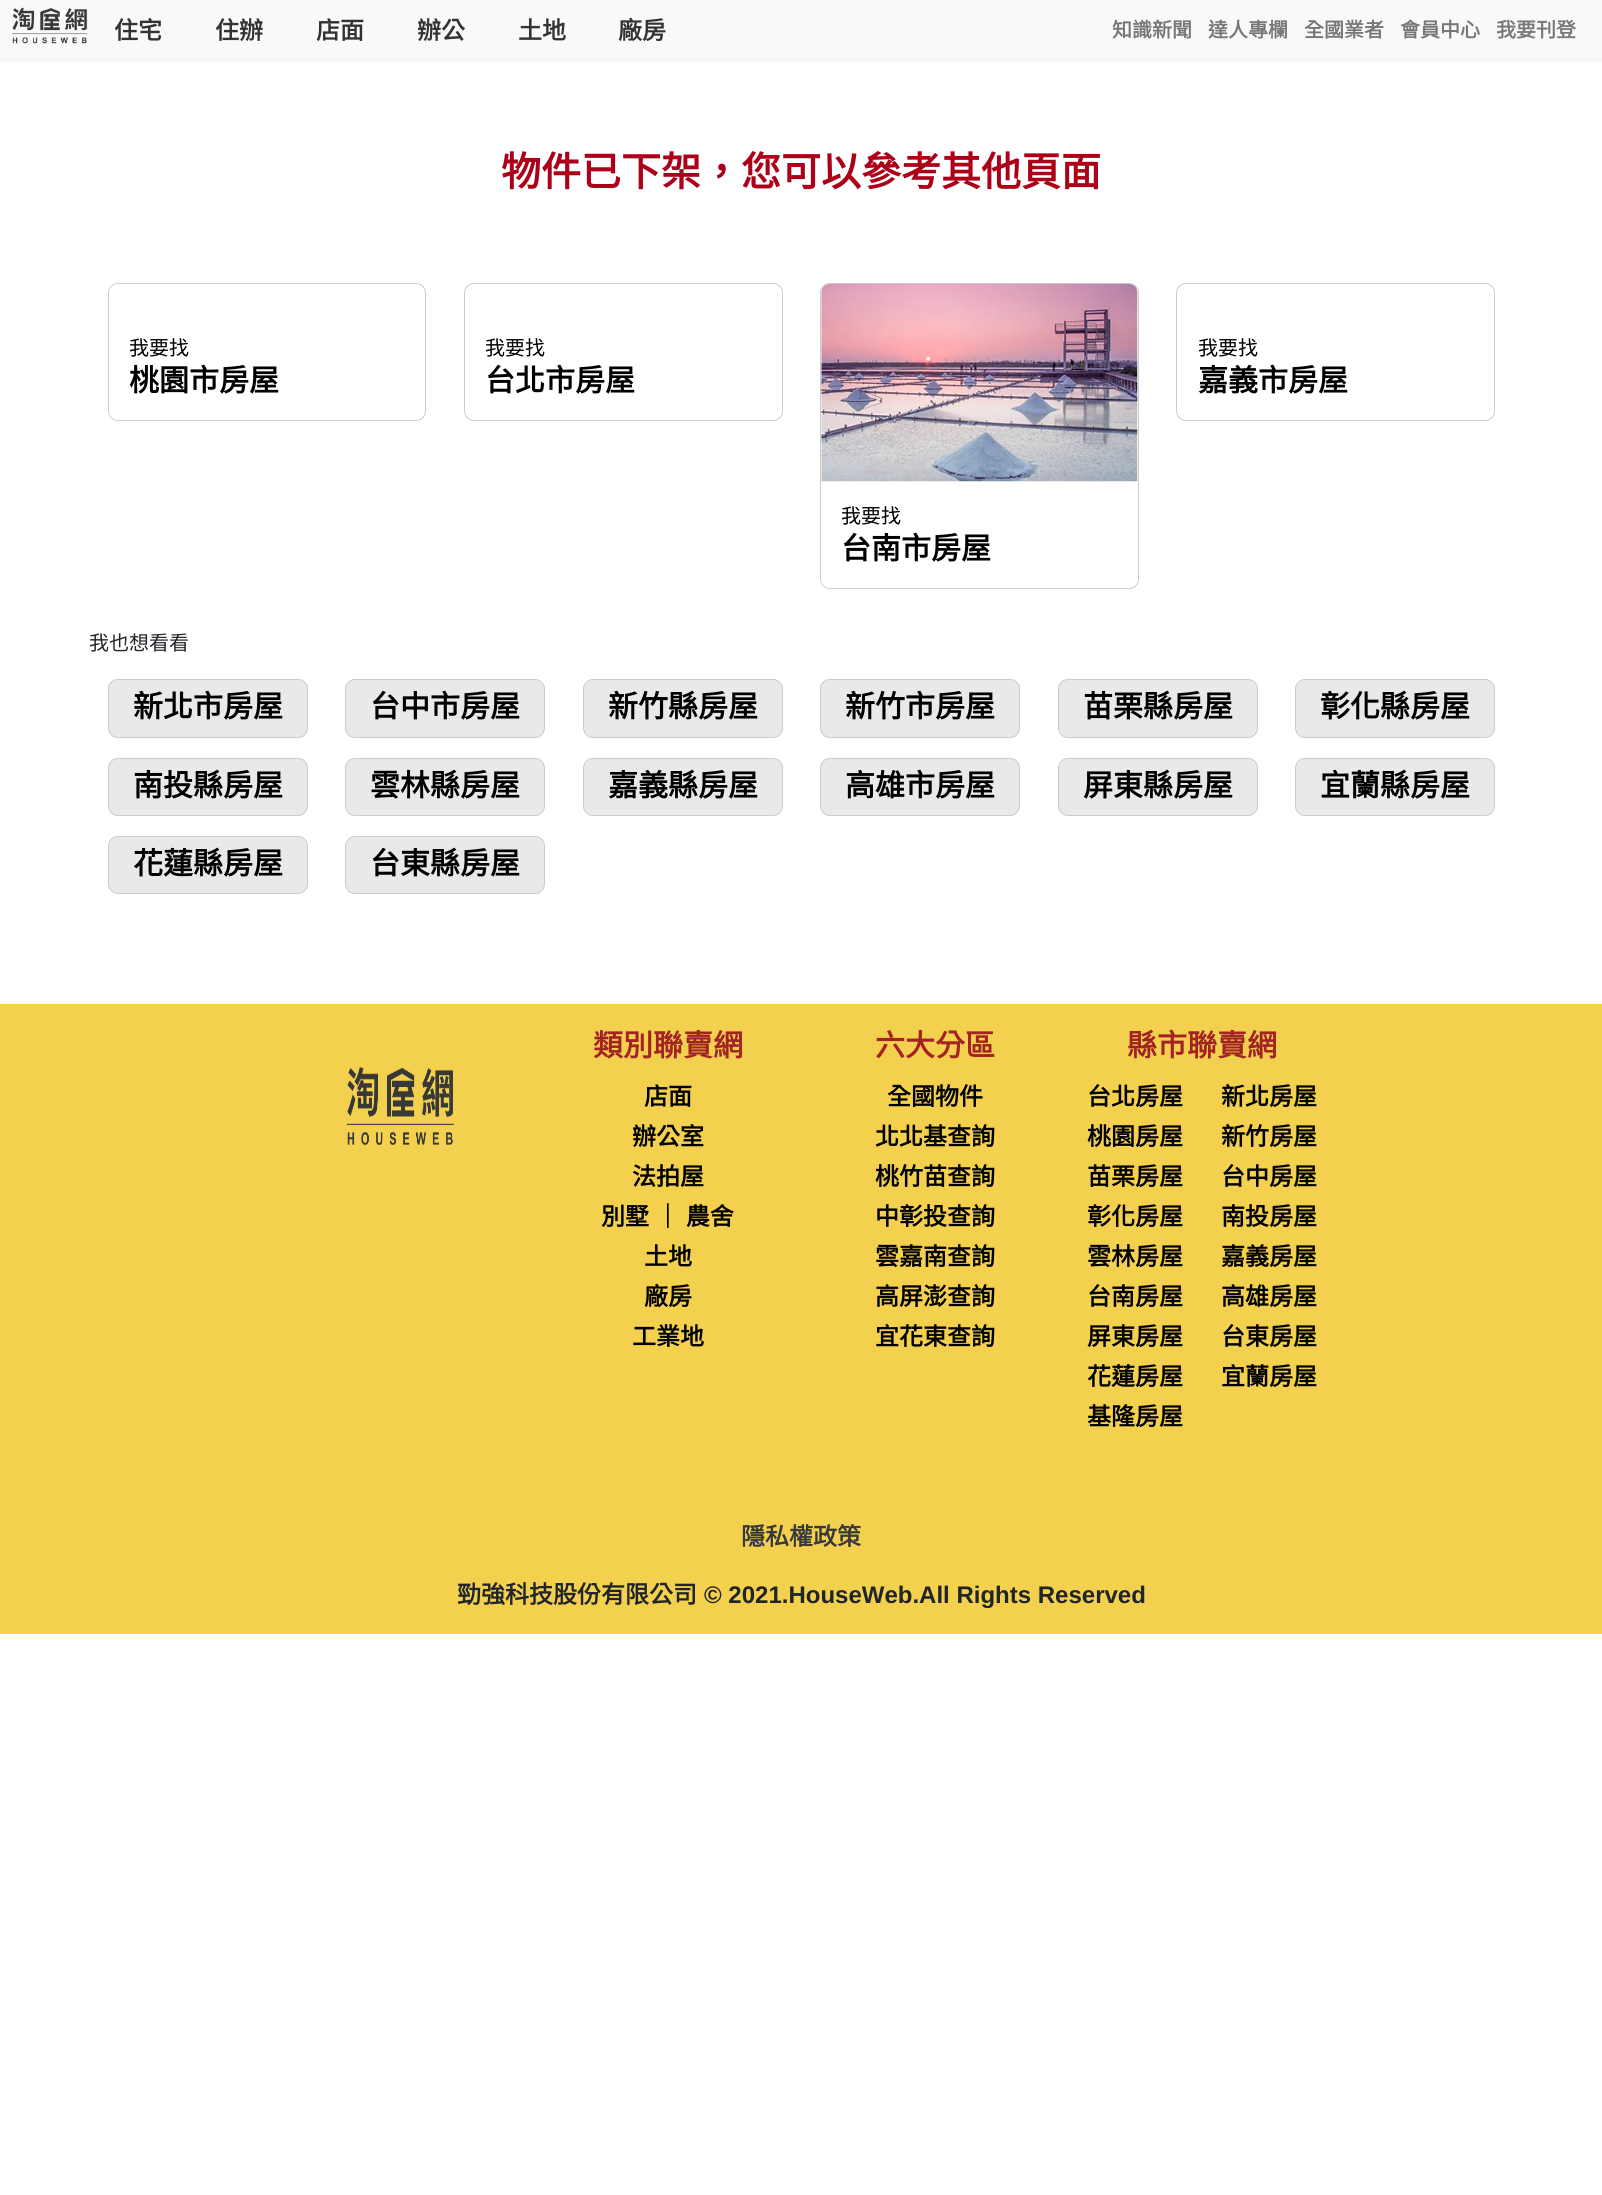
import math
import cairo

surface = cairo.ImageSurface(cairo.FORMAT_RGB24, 1602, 2195)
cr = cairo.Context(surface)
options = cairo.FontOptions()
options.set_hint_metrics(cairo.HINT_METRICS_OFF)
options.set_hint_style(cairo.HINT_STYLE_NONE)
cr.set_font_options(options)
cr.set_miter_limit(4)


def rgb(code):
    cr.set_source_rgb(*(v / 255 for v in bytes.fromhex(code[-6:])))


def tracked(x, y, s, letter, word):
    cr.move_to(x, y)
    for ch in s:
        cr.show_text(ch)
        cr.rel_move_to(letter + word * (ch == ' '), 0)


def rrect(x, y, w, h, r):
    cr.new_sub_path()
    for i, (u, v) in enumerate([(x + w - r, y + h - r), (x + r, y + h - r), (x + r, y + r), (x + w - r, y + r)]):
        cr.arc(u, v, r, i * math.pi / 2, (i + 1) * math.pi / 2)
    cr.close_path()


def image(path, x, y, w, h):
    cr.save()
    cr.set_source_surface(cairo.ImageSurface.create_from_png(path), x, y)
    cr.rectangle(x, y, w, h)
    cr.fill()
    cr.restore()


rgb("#ffffff")
cr.paint()
rgb("#f8f9fa")
cr.rectangle(0, 0, 1602, 63)
cr.fill()
image("img/1.png", 12, 7, 76, 37)
rrect(108.5, 283.5, 317, 137, 9.5)
rgb("#cccccc")
cr.set_line_width(1)
cr.stroke()
rrect(464.5, 283.5, 318, 137, 9.5)
cr.stroke()
rrect(1176.5, 283.5, 318, 137, 9.5)
cr.stroke()
rrect(820.5, 283.5, 318, 305, 9.5)
cr.stroke()
image("img/2.png", 821, 283, 317, 199)
rgb("#e9e9e9")
rrect(108.5, 679.5, 199, 58, 9.5)
cr.fill_preserve()
rgb("#cccccc")
cr.stroke()
rgb("#e9e9e9")
rrect(345.5, 679.5, 199, 58, 9.5)
cr.fill_preserve()
rgb("#cccccc")
cr.stroke()
rgb("#e9e9e9")
rrect(583.5, 679.5, 199, 58, 9.5)
cr.fill_preserve()
rgb("#cccccc")
cr.stroke()
rgb("#e9e9e9")
rrect(820.5, 679.5, 199, 58, 9.5)
cr.fill_preserve()
rgb("#cccccc")
cr.stroke()
rgb("#e9e9e9")
rrect(1058.5, 679.5, 199, 58, 9.5)
cr.fill_preserve()
rgb("#cccccc")
cr.stroke()
rgb("#e9e9e9")
rrect(1295.5, 679.5, 199, 58, 9.5)
cr.fill_preserve()
rgb("#cccccc")
cr.stroke()
rgb("#e9e9e9")
rrect(108.5, 758.5, 199, 57, 9.5)
cr.fill_preserve()
rgb("#cccccc")
cr.stroke()
rgb("#e9e9e9")
rrect(345.5, 758.5, 199, 57, 9.5)
cr.fill_preserve()
rgb("#cccccc")
cr.stroke()
rgb("#e9e9e9")
rrect(583.5, 758.5, 199, 57, 9.5)
cr.fill_preserve()
rgb("#cccccc")
cr.stroke()
rgb("#e9e9e9")
rrect(820.5, 758.5, 199, 57, 9.5)
cr.fill_preserve()
rgb("#cccccc")
cr.stroke()
rgb("#e9e9e9")
rrect(1058.5, 758.5, 199, 57, 9.5)
cr.fill_preserve()
rgb("#cccccc")
cr.stroke()
rgb("#e9e9e9")
rrect(1295.5, 758.5, 199, 57, 9.5)
cr.fill_preserve()
rgb("#cccccc")
cr.stroke()
rgb("#e9e9e9")
rrect(108.5, 836.5, 199, 57, 9.5)
cr.fill_preserve()
rgb("#cccccc")
cr.stroke()
rgb("#e9e9e9")
rrect(345.5, 836.5, 199, 57, 9.5)
cr.fill_preserve()
rgb("#cccccc")
cr.stroke()
rgb("#f3d04d")
cr.rectangle(0, 1004, 1602, 630)
cr.fill()
image("img/3.png", 346, 1066, 108, 79)
cr.select_font_face("Noto Sans CJK TC", cairo.FONT_SLANT_NORMAL, cairo.FONT_WEIGHT_BOLD)
cr.set_font_size(24)
rgb("#333333")
for x, y, s in [
    (114, 39, "住宅"),
    (215, 39, "住辦"),
    (316, 39, "店面"),
    (417, 39, "辦公"),
    (518, 39, "土地"),
    (618, 39, "廠房"),
]:
    cr.move_to(x, y)
    cr.show_text(s)
cr.set_font_size(20)
rgb("#777777")
for x, y, s in [
    (1112, 37, "知識新聞"),
    (1208, 37, "達人專欄"),
    (1304, 37, "全國業者"),
    (1400, 37, "會員中心"),
    (1496, 37, "我要刊登"),
]:
    cr.move_to(x, y)
    cr.show_text(s)
cr.set_font_size(40)
rgb("#ad0018")
cr.move_to(501, 186)
cr.show_text("物件已下架，您可以參考其他頁面")
cr.select_font_face("Noto Sans CJK TC")
cr.set_font_size(20)
rgb("#000000")
cr.move_to(129, 355)
cr.show_text("我要找")
cr.select_font_face("Noto Sans CJK TC", cairo.FONT_SLANT_NORMAL, cairo.FONT_WEIGHT_BOLD)
cr.set_font_size(30)
cr.move_to(129, 391)
cr.show_text("桃園市房屋")
cr.select_font_face("Noto Sans CJK TC")
cr.set_font_size(20)
cr.move_to(485, 355)
cr.show_text("我要找")
cr.select_font_face("Noto Sans CJK TC", cairo.FONT_SLANT_NORMAL, cairo.FONT_WEIGHT_BOLD)
cr.set_font_size(30)
cr.move_to(485, 391)
cr.show_text("台北市房屋")
cr.select_font_face("Noto Sans CJK TC")
cr.set_font_size(20)
cr.move_to(1198, 355)
cr.show_text("我要找")
cr.select_font_face("Noto Sans CJK TC", cairo.FONT_SLANT_NORMAL, cairo.FONT_WEIGHT_BOLD)
cr.set_font_size(30)
cr.move_to(1198, 391)
cr.show_text("嘉義市房屋")
cr.select_font_face("Noto Sans CJK TC")
cr.set_font_size(20)
cr.move_to(841, 523)
cr.show_text("我要找")
cr.select_font_face("Noto Sans CJK TC", cairo.FONT_SLANT_NORMAL, cairo.FONT_WEIGHT_BOLD)
cr.set_font_size(30)
cr.move_to(841, 559)
cr.show_text("台南市房屋")
cr.select_font_face("Noto Sans CJK TC")
cr.set_font_size(20)
rgb("#212529")
cr.move_to(89, 650)
cr.show_text("我也想看看")
cr.select_font_face("Noto Sans CJK TC", cairo.FONT_SLANT_NORMAL, cairo.FONT_WEIGHT_BOLD)
cr.set_font_size(30)
rgb("#000000")
for x, y, s in [
    (133, 717, "新北市房屋"),
    (370, 717, "台中市房屋"),
    (608, 717, "新竹縣房屋"),
    (845, 717, "新竹市房屋"),
    (1083, 717, "苗栗縣房屋"),
    (1320, 717, "彰化縣房屋"),
    (133, 796, "南投縣房屋"),
    (370, 796, "雲林縣房屋"),
    (608, 796, "嘉義縣房屋"),
    (845, 796, "高雄市房屋"),
    (1083, 796, "屏東縣房屋"),
    (1320, 796, "宜蘭縣房屋"),
    (133, 874, "花蓮縣房屋"),
    (370, 874, "台東縣房屋"),
]:
    cr.move_to(x, y)
    cr.show_text(s)
rgb("#a32324")
cr.move_to(593, 1056)
cr.show_text("類別聯賣網")
cr.set_font_size(24)
rgb("#000000")
for x, y, s in [
    (644, 1105, "店面"),
    (632, 1145, "辦公室"),
    (632, 1185, "法拍屋"),
]:
    cr.move_to(x, y)
    cr.show_text(s)
tracked(601, 1225, "別墅 ｜ 農舍", 0, 1)
for x, y, s in [
    (644, 1265, "土地"),
    (644, 1305, "廠房"),
    (632, 1345, "工業地"),
]:
    cr.move_to(x, y)
    cr.show_text(s)
cr.set_font_size(30)
rgb("#a32324")
cr.move_to(875, 1056)
cr.show_text("六大分區")
cr.set_font_size(24)
rgb("#000000")
for x, y, s in [
    (887, 1105, "全國物件"),
    (875, 1145, "北北基查詢"),
    (875, 1185, "桃竹苗查詢"),
    (875, 1225, "中彰投查詢"),
    (875, 1265, "雲嘉南查詢"),
    (875, 1305, "高屏澎查詢"),
    (875, 1345, "宜花東查詢"),
]:
    cr.move_to(x, y)
    cr.show_text(s)
cr.set_font_size(30)
rgb("#a32324")
cr.move_to(1127, 1056)
cr.show_text("縣市聯賣網")
cr.set_font_size(24)
rgb("#000000")
for x, y, s in [
    (1087, 1105, "台北房屋"),
    (1221, 1105, "新北房屋"),
    (1087, 1145, "桃園房屋"),
    (1221, 1145, "新竹房屋"),
    (1087, 1185, "苗栗房屋"),
    (1221, 1185, "台中房屋"),
    (1087, 1225, "彰化房屋"),
    (1221, 1225, "南投房屋"),
    (1087, 1265, "雲林房屋"),
    (1221, 1265, "嘉義房屋"),
    (1087, 1305, "台南房屋"),
    (1221, 1305, "高雄房屋"),
    (1087, 1345, "屏東房屋"),
    (1221, 1345, "台東房屋"),
    (1087, 1385, "花蓮房屋"),
    (1221, 1385, "宜蘭房屋"),
    (1087, 1425, "基隆房屋"),
]:
    cr.move_to(x, y)
    cr.show_text(s)
rgb("#37393c")
cr.move_to(741, 1545)
cr.show_text("隱私權政策")
rgb("#212529")
cr.move_to(457, 1603)
cr.show_text("勁強科技股份有限公司")
cr.select_font_face("Liberation Sans", cairo.FONT_SLANT_NORMAL, cairo.FONT_WEIGHT_BOLD)
cr.move_to(704, 1603)
cr.show_text("© 2021.HouseWeb.All Rights Reserved")
surface.write_to_png("page.png")
